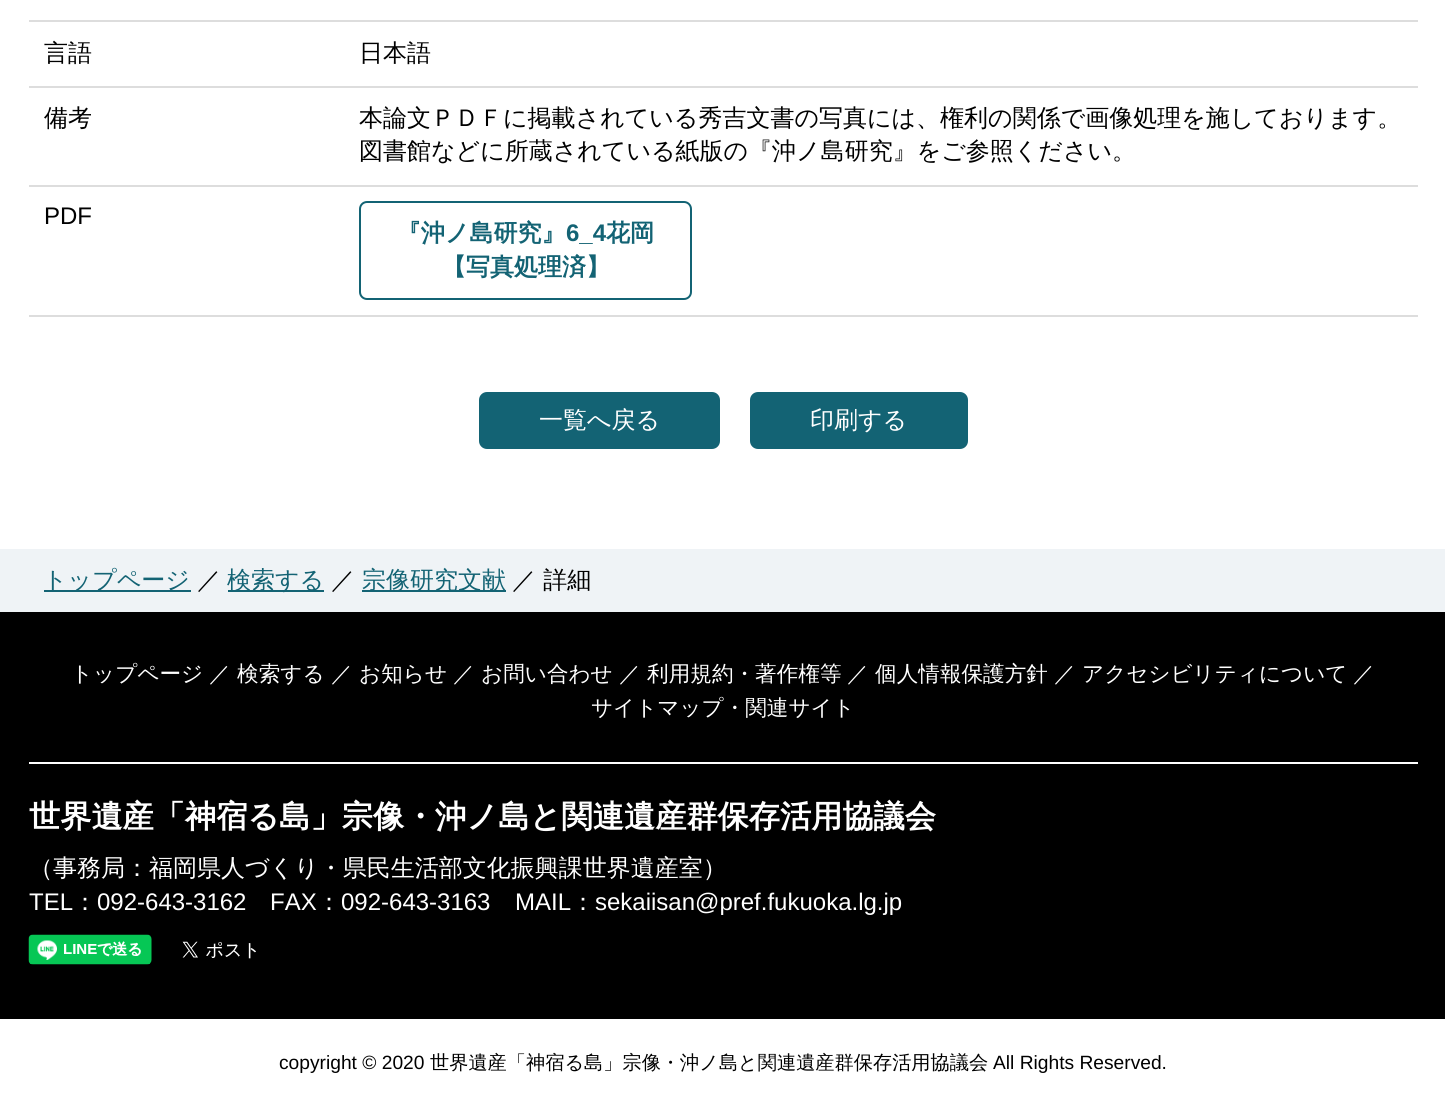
import math
import cairo

surface = cairo.ImageSurface(cairo.FORMAT_RGB24, 1445, 1105)
cr = cairo.Context(surface)
options = cairo.FontOptions()
options.set_hint_metrics(cairo.HINT_METRICS_OFF)
options.set_hint_style(cairo.HINT_STYLE_NONE)
cr.set_font_options(options)
cr.set_miter_limit(4)


def rgb(code):
    cr.set_source_rgb(*(v / 255 for v in bytes.fromhex(code[-6:])))


def rrect(x, y, w, h, r):
    cr.new_sub_path()
    for i, (u, v) in enumerate([(x + w - r, y + h - r), (x + r, y + h - r), (x + r, y + r), (x + w - r, y + r)]):
        cr.arc(u, v, r, i * math.pi / 2, (i + 1) * math.pi / 2)
    cr.close_path()


def image(path, x, y, w, h):
    cr.save()
    cr.set_source_surface(cairo.ImageSurface.create_from_png(path), x, y)
    cr.rectangle(x, y, w, h)
    cr.fill()
    cr.restore()


rgb("#ffffff")
cr.paint()
for x, y, w, h, color in [
    (29, 20, 1389, 2, "#dddddd"),
    (29, 86, 1389, 2, "#dddddd"),
    (29, 185, 1389, 2, "#dddddd"),
    (29, 315, 1389, 2, "#dddddd"),
]:
    rgb(color)
    cr.rectangle(x, y, w, h)
    cr.fill()
rrect(360, 202, 331, 97, 7)
rgb("#136374")
cr.stroke()
rrect(479, 392, 241, 57, 8)
cr.fill()
rrect(750, 392, 218, 57, 8)
cr.fill()
for x, y, w, h, color in [
    (0, 549, 1445, 63, "#eff3f6"),
    (44, 590, 147, 2, "#136374"),
    (228, 590, 96, 2, "#136374"),
    (362, 590, 144, 2, "#136374"),
    (0, 612, 1445, 407, "#000000"),
    (29, 762, 1389, 2, "#ffffff"),
]:
    rgb(color)
    cr.rectangle(x, y, w, h)
    cr.fill()
image("img/1.png", 28, 934, 124, 31)
image("img/2.png", 182, 941, 74, 18)
cr.select_font_face("WenQuanYi Zen Hei Medium")
cr.set_font_size(24)
rgb("#000000")
for x, y, s in [
    (44, 61, "言語"),
    (359, 61, "日本語"),
    (44, 126, "備考"),
    (359, 126, "本論文ＰＤＦに掲載されている秀吉文書の写真には、権利の関係で画像処理を施しております。"),
    (359, 159, "図書館などに所蔵されている紙版の『沖ノ島研究』をご参照ください。"),
]:
    cr.move_to(x, y)
    cr.show_text(s)
cr.select_font_face("Liberation Sans")
cr.move_to(44, 224)
cr.show_text("PDF")
cr.select_font_face("WenQuanYi Zen Hei", cairo.FONT_SLANT_NORMAL, cairo.FONT_WEIGHT_BOLD)
rgb("#136374")
cr.move_to(397, 241)
cr.show_text("『沖ノ島研究』")
cr.select_font_face("Liberation Sans", cairo.FONT_SLANT_NORMAL, cairo.FONT_WEIGHT_BOLD)
cr.move_to(566, 241)
cr.show_text("6_4")
cr.select_font_face("WenQuanYi Zen Hei", cairo.FONT_SLANT_NORMAL, cairo.FONT_WEIGHT_BOLD)
cr.move_to(606, 241)
cr.show_text("花岡")
cr.move_to(442, 275)
cr.show_text("【写真処理済】")
cr.select_font_face("WenQuanYi Zen Hei Medium")
rgb("#ffffff")
cr.move_to(539, 428)
cr.show_text("一覧へ戻る")
cr.move_to(810, 428)
cr.show_text("印刷する")
rgb("#136374")
cr.move_to(43, 588)
cr.show_text("トップページ")
rgb("#000000")
cr.move_to(197, 588)
cr.show_text("／")
rgb("#136374")
cr.move_to(227, 588)
cr.show_text("検索する")
rgb("#000000")
cr.move_to(331, 588)
cr.show_text("／")
rgb("#136374")
cr.move_to(362, 588)
cr.show_text("宗像研究文献")
rgb("#000000")
cr.move_to(512, 588)
cr.show_text("／ 詳細")
cr.set_font_size(21.6)
rgb("#ffffff")
for x, y, s in [
    (71, 681, "トップページ"),
    (209, 681, "／ 検索する"),
    (331, 681, "／ お知らせ"),
    (453, 681, "／ お問い合わせ"),
    (619, 681, "／ 利用規約・著作権等"),
    (847, 681, "／ 個人情報保護方針"),
    (1054, 681, "／ アクセシビリティについて"),
    (1353, 681, "／"),
    (591, 715, "サイトマップ・関連サイト"),
]:
    cr.move_to(x, y)
    cr.show_text(s)
cr.select_font_face("WenQuanYi Zen Hei", cairo.FONT_SLANT_NORMAL, cairo.FONT_WEIGHT_BOLD)
cr.set_font_size(31.2)
cr.move_to(29, 827)
cr.show_text("世界遺産「神宿る島」宗像・沖ノ島と関連遺産群保存活用協議会")
cr.select_font_face("WenQuanYi Zen Hei Medium")
cr.set_font_size(24)
cr.move_to(29, 876)
cr.show_text("（事務局：福岡県人づくり・県民生活部文化振興課世界遺産室）")
cr.select_font_face("Liberation Sans")
cr.move_to(29, 910)
cr.show_text("TEL")
cr.select_font_face("WenQuanYi Zen Hei Medium")
cr.move_to(73, 910)
cr.show_text("：")
cr.select_font_face("Liberation Sans")
cr.move_to(97, 910)
cr.show_text("092-643-3162")
cr.move_to(270, 910)
cr.show_text("FAX")
cr.select_font_face("WenQuanYi Zen Hei Medium")
cr.move_to(317, 910)
cr.show_text("：")
cr.select_font_face("Liberation Sans")
cr.move_to(341, 910)
cr.show_text("092-643-3163")
cr.move_to(515, 910)
cr.show_text("MAIL")
cr.select_font_face("WenQuanYi Zen Hei Medium")
cr.move_to(571, 910)
cr.show_text("：")
cr.select_font_face("Liberation Sans")
cr.move_to(595, 910)
cr.show_text("sekaiisan@pref.fukuoka.lg.jp")
cr.set_font_size(19.2)
rgb("#000000")
cr.move_to(279, 1069)
cr.show_text("copyright © 2020")
cr.select_font_face("WenQuanYi Zen Hei Medium")
cr.move_to(430, 1069)
cr.show_text("世界遺産「神宿る島」宗像・沖ノ島と関連遺産群保存活用協議会")
cr.select_font_face("Liberation Sans")
cr.move_to(993, 1069)
cr.show_text("All Rights Reserved.")
surface.write_to_png("page.png")
